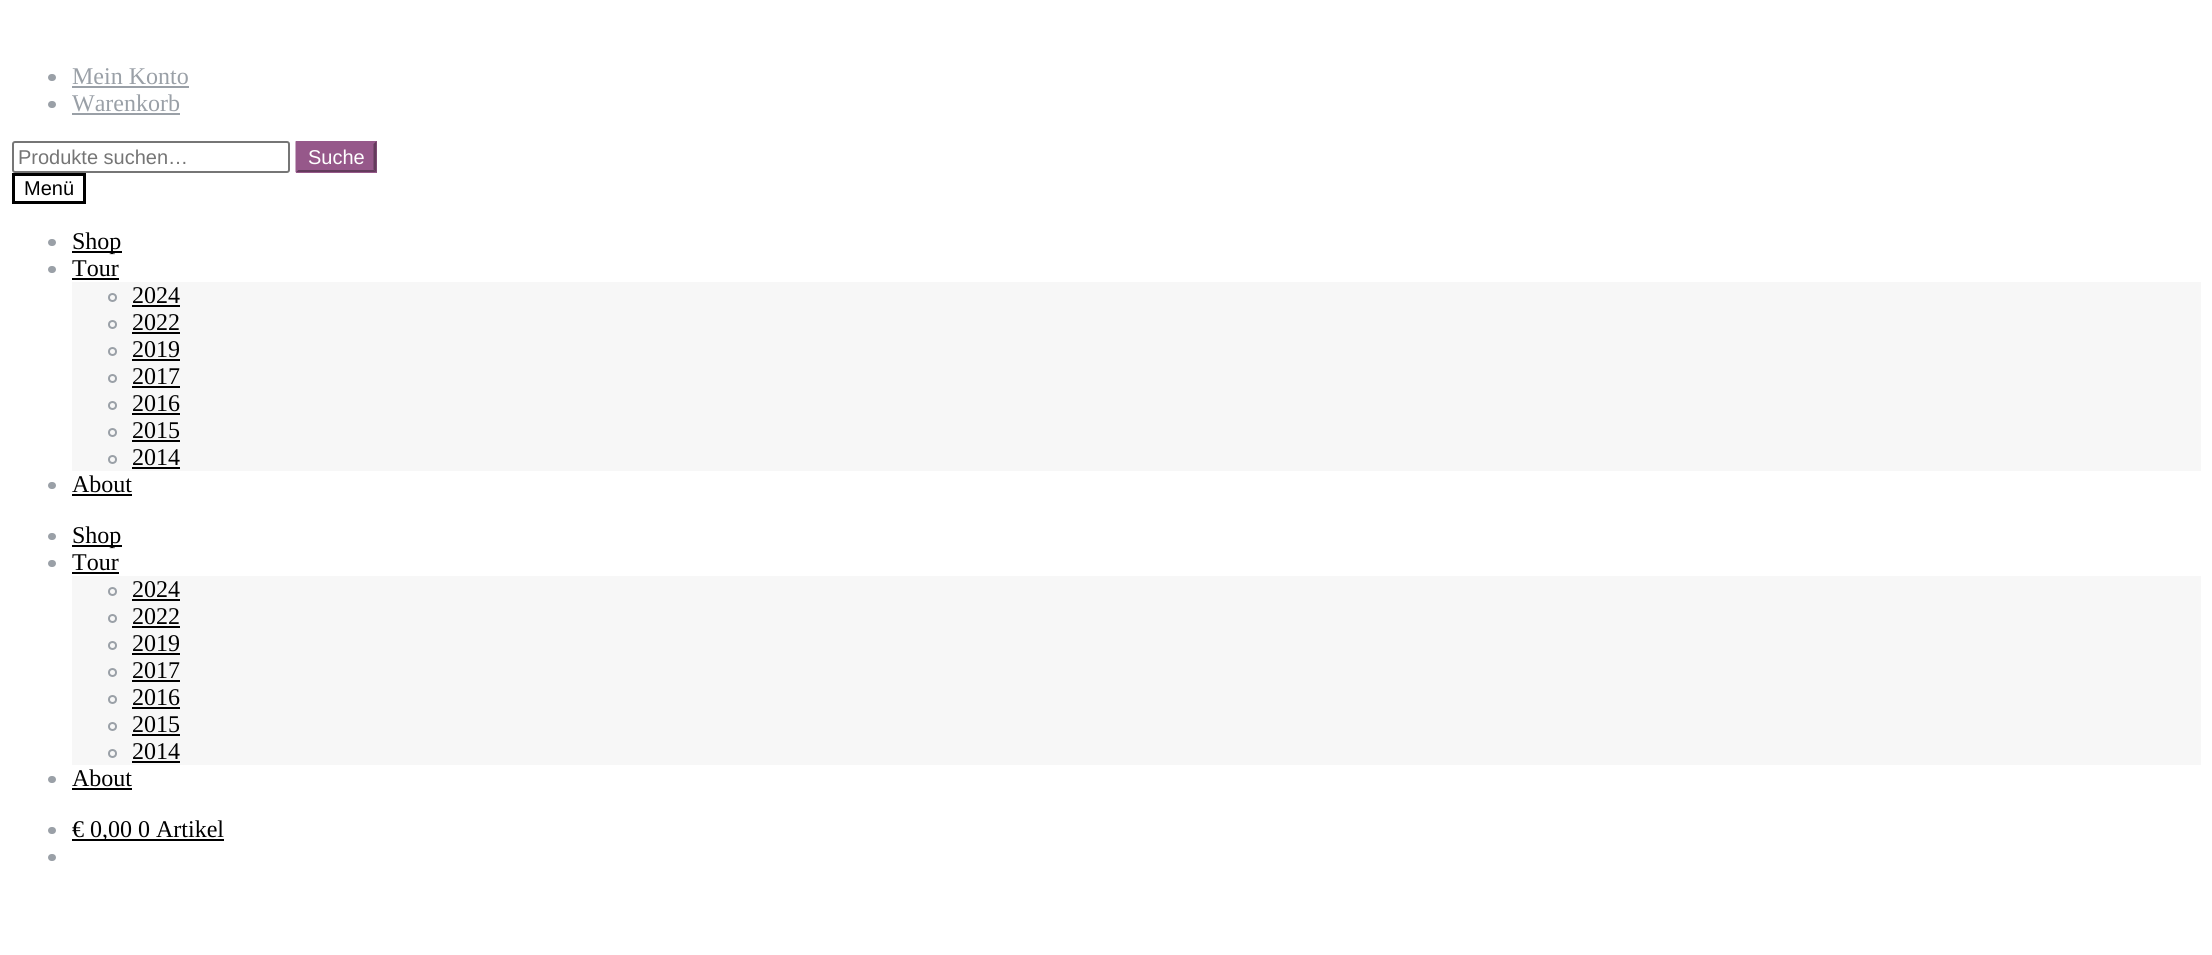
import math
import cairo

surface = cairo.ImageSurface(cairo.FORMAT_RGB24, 2212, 955)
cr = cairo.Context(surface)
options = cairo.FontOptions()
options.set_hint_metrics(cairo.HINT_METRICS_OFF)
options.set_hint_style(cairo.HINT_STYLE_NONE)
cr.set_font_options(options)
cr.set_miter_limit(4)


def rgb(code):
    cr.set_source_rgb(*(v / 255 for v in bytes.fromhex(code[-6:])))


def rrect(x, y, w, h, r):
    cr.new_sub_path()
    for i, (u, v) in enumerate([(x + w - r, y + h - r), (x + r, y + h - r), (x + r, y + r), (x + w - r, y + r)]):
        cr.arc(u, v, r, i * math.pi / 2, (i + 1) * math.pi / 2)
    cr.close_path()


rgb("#ffffff")
cr.paint()
rgb("#9aa0a7")
rrect(48, 74, 8, 7, 3.5)
cr.fill()
cr.rectangle(72, 86, 117, 2)
cr.fill()
rrect(48, 101, 8, 7, 3.5)
cr.fill()
cr.rectangle(72, 113, 108, 2)
cr.fill()
rrect(13, 142, 276, 30, 2)
rgb("#767676")
cr.stroke()
rgb("#96588a")
cr.rectangle(296, 141, 81, 32)
cr.fill()
rgb("#643b5c")
cr.new_path()
cr.move_to(376.5, 141)
cr.line_to(376.5, 172.5)
cr.line_to(373.5, 169.5)
cr.line_to(373.5, 144)
cr.close_path()
cr.fill()
cr.new_path()
cr.move_to(376, 172)
cr.line_to(296, 172)
cr.line_to(298, 170)
cr.line_to(374, 170)
cr.close_path()
cr.fill()
rgb("#96588a")
cr.new_path()
cr.move_to(295.5, 172.5)
cr.line_to(295.5, 141)
cr.line_to(298.5, 144)
cr.line_to(298.5, 169.5)
cr.close_path()
cr.fill()
cr.rectangle(13.5, 174.5, 71, 28)
rgb("#000000")
cr.set_line_width(3)
cr.stroke()
rgb("#9aa0a7")
rrect(48, 239, 8, 7, 3.5)
cr.fill()
rgb("#000000")
cr.rectangle(72, 251, 50, 2)
cr.fill()
rgb("#9aa0a7")
rrect(48, 266, 8, 7, 3.5)
cr.fill()
rgb("#000000")
cr.rectangle(72, 278, 47, 2)
cr.fill()
rgb("#f7f7f7")
cr.rectangle(72, 282, 2129, 189)
cr.fill()
cr.arc(112.5, 297.5, 3.5, 0, 2 * math.pi)
rgb("#9aa0a7")
cr.set_line_width(2)
cr.stroke()
rgb("#000000")
cr.rectangle(132, 305, 48, 2)
cr.fill()
cr.arc(112.5, 324.5, 3.5, 0, 2 * math.pi)
rgb("#9aa0a7")
cr.stroke()
rgb("#000000")
cr.rectangle(132, 332, 48, 2)
cr.fill()
cr.arc(112.5, 351.5, 3.5, 0, 2 * math.pi)
rgb("#9aa0a7")
cr.stroke()
rgb("#000000")
cr.rectangle(132, 359, 48, 2)
cr.fill()
cr.arc(112.5, 378.5, 3.5, 0, 2 * math.pi)
rgb("#9aa0a7")
cr.stroke()
rgb("#000000")
cr.rectangle(132, 386, 48, 2)
cr.fill()
cr.arc(112.5, 405.5, 3.5, 0, 2 * math.pi)
rgb("#9aa0a7")
cr.stroke()
rgb("#000000")
cr.rectangle(132, 413, 48, 2)
cr.fill()
cr.arc(112.5, 432.5, 3.5, 0, 2 * math.pi)
rgb("#9aa0a7")
cr.stroke()
rgb("#000000")
cr.rectangle(132, 440, 48, 2)
cr.fill()
cr.arc(112.5, 459.5, 3.5, 0, 2 * math.pi)
rgb("#9aa0a7")
cr.stroke()
rgb("#000000")
cr.rectangle(132, 467, 48, 2)
cr.fill()
rgb("#9aa0a7")
rrect(48, 482, 8, 7, 3.5)
cr.fill()
rgb("#000000")
cr.rectangle(72, 494, 60, 2)
cr.fill()
rgb("#9aa0a7")
rrect(48, 533, 8, 7, 3.5)
cr.fill()
rgb("#000000")
cr.rectangle(72, 545, 50, 2)
cr.fill()
rgb("#9aa0a7")
rrect(48, 560, 8, 7, 3.5)
cr.fill()
rgb("#000000")
cr.rectangle(72, 572, 47, 2)
cr.fill()
rgb("#f7f7f7")
cr.rectangle(72, 576, 2129, 189)
cr.fill()
cr.arc(112.5, 591.5, 3.5, 0, 2 * math.pi)
rgb("#9aa0a7")
cr.stroke()
rgb("#000000")
cr.rectangle(132, 599, 48, 2)
cr.fill()
cr.arc(112.5, 618.5, 3.5, 0, 2 * math.pi)
rgb("#9aa0a7")
cr.stroke()
rgb("#000000")
cr.rectangle(132, 626, 48, 2)
cr.fill()
cr.arc(112.5, 645.5, 3.5, 0, 2 * math.pi)
rgb("#9aa0a7")
cr.stroke()
rgb("#000000")
cr.rectangle(132, 653, 48, 2)
cr.fill()
cr.arc(112.5, 672.5, 3.5, 0, 2 * math.pi)
rgb("#9aa0a7")
cr.stroke()
rgb("#000000")
cr.rectangle(132, 680, 48, 2)
cr.fill()
cr.arc(112.5, 699.5, 3.5, 0, 2 * math.pi)
rgb("#9aa0a7")
cr.stroke()
rgb("#000000")
cr.rectangle(132, 707, 48, 2)
cr.fill()
cr.arc(112.5, 726.5, 3.5, 0, 2 * math.pi)
rgb("#9aa0a7")
cr.stroke()
rgb("#000000")
cr.rectangle(132, 734, 48, 2)
cr.fill()
cr.arc(112.5, 753.5, 3.5, 0, 2 * math.pi)
rgb("#9aa0a7")
cr.stroke()
rgb("#000000")
cr.rectangle(132, 761, 48, 2)
cr.fill()
rgb("#9aa0a7")
rrect(48, 776, 8, 7, 3.5)
cr.fill()
rgb("#000000")
cr.rectangle(72, 788, 60, 2)
cr.fill()
rgb("#9aa0a7")
rrect(48, 827, 8, 7, 3.5)
cr.fill()
rgb("#000000")
cr.rectangle(72, 839, 152, 2)
cr.fill()
rgb("#9aa0a7")
rrect(48, 854, 8, 7, 3.5)
cr.fill()
cr.select_font_face("Liberation Serif")
cr.set_font_size(24)
cr.move_to(72, 84)
cr.show_text("Mein Konto")
cr.move_to(72, 111)
cr.show_text("Warenkorb")
cr.select_font_face("Liberation Sans")
cr.set_font_size(20)
rgb("#757575")
cr.move_to(18, 164)
cr.show_text("Produkte suchen…")
rgb("#ffffff")
cr.move_to(308, 164)
cr.show_text("Suche")
rgb("#000000")
cr.move_to(24, 195)
cr.show_text("Menü")
cr.select_font_face("Liberation Serif")
cr.set_font_size(24)
for x, y, s in [
    (72, 249, "Shop"),
    (72, 276, "Tour"),
    (132, 303, "2024"),
    (132, 330, "2022"),
    (132, 357, "2019"),
    (132, 384, "2017"),
    (132, 411, "2016"),
    (132, 438, "2015"),
    (132, 465, "2014"),
    (72, 492, "About"),
    (72, 543, "Shop"),
    (72, 570, "Tour"),
    (132, 597, "2024"),
    (132, 624, "2022"),
    (132, 651, "2019"),
    (132, 678, "2017"),
    (132, 705, "2016"),
    (132, 732, "2015"),
    (132, 759, "2014"),
    (72, 786, "About"),
    (72, 837, "€ 0,00 0 Artikel"),
]:
    cr.move_to(x, y)
    cr.show_text(s)
surface.write_to_png("page.png")
